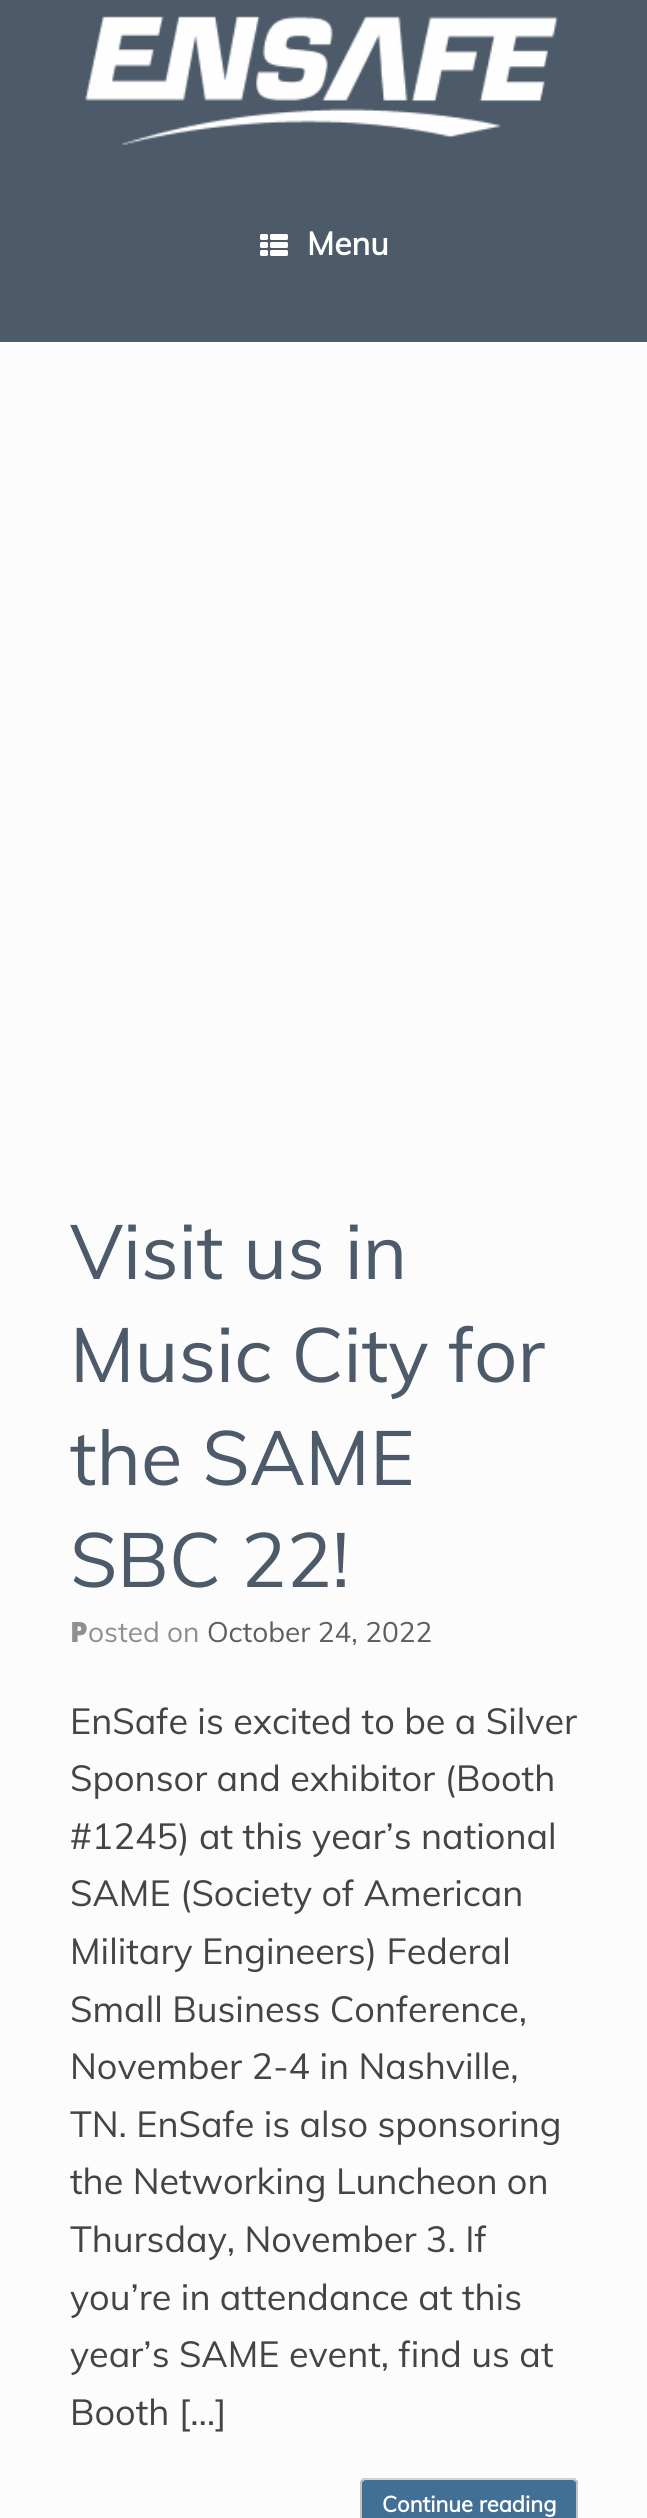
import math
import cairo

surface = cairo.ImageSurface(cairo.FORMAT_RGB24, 647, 2518)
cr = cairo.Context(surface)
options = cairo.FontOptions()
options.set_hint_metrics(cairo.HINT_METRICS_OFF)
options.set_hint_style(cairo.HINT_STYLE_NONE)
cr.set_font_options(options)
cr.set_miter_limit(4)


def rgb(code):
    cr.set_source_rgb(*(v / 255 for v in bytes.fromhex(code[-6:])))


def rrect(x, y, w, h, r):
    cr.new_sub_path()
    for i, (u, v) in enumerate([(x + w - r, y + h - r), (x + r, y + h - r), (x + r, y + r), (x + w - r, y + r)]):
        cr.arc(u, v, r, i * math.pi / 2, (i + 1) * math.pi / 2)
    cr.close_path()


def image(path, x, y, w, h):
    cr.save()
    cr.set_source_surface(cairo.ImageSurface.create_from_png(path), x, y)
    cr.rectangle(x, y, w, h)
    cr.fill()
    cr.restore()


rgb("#4c5a69")
cr.paint()
image("img/1.png", 84, 16, 474, 129)
image("img/2.png", 260, 234, 28, 22)
rgb("#fcfcfc")
cr.rectangle(0, 342, 647, 2176)
cr.fill()
rgb("#416f96")
rrect(360, 2478, 218, 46, 6)
cr.fill()
cr.new_path()
cr.move_to(362.5, 2480.5)
cr.curve_to(363.5, 2479.5, 364.5, 2479, 366, 2479)
cr.line_to(572, 2479)
cr.curve_to(573.5, 2479, 574.5, 2479.5, 575.5, 2480.5)
rgb("#d2d2d2")
cr.stroke()
cr.new_path()
cr.move_to(575.5, 2480.5)
cr.curve_to(576.5, 2481.5, 577, 2482.5, 577, 2484)
cr.line_to(577, 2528)
cr.curve_to(577, 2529.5, 576.5, 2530.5, 575.5, 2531.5)
rgb("#c3c3c3")
cr.stroke()
cr.new_path()
cr.move_to(362.5, 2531.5)
cr.curve_to(361.5, 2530.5, 361, 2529.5, 361, 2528)
cr.line_to(361, 2484)
cr.curve_to(361, 2482.5, 361.5, 2481.5, 362.5, 2480.5)
cr.stroke()
cr.select_font_face("Muli", cairo.FONT_SLANT_NORMAL, cairo.FONT_WEIGHT_BOLD)
cr.set_font_size(32)
rgb("#ffffff")
cr.move_to(307, 255)
cr.show_text("Menu")
cr.select_font_face("Muli")
cr.set_font_size(76)
rgb("#4c5a69")
for x, y, s in [
    (70, 1279, "Visit us in"),
    (70, 1382, "Music City for"),
    (70, 1485, "the SAME"),
    (70, 1587, "SBC 22!"),
]:
    cr.move_to(x, y)
    cr.show_text(s)
cr.select_font_face("Noto Sans Black")
cr.set_font_size(28)
rgb("#8f8f8f")
cr.move_to(70, 1642)
cr.show_text("P")
cr.select_font_face("Muli")
cr.move_to(88, 1642)
cr.show_text("osted on")
rgb("#5e5e5e")
cr.move_to(207, 1642)
cr.show_text("October 24, 2022")
cr.set_font_size(36)
rgb("#444444")
for x, y, s in [
    (70, 1734, "EnSafe is excited to be a Silver"),
    (70, 1791, "Sponsor and exhibitor (Booth"),
    (70, 1849, "#1245) at this year’s national"),
    (70, 1906, "SAME (Society of American"),
    (70, 1964, "Military Engineers) Federal"),
    (70, 2022, "Small Business Conference,"),
    (70, 2079, "November 2-4 in Nashville,"),
    (70, 2137, "TN. EnSafe is also sponsoring"),
    (70, 2194, "the Networking Luncheon on"),
    (70, 2252, "Thursday, November 3. If"),
    (70, 2310, "you’re in attendance at this"),
    (70, 2367, "year’s SAME event, find us at"),
    (70, 2425, "Booth […]"),
]:
    cr.move_to(x, y)
    cr.show_text(s)
cr.select_font_face("Muli", cairo.FONT_SLANT_NORMAL, cairo.FONT_WEIGHT_BOLD)
cr.set_font_size(22)
rgb("#ffffff")
cr.move_to(382, 2512)
cr.show_text("Continue reading")
surface.write_to_png("page.png")
